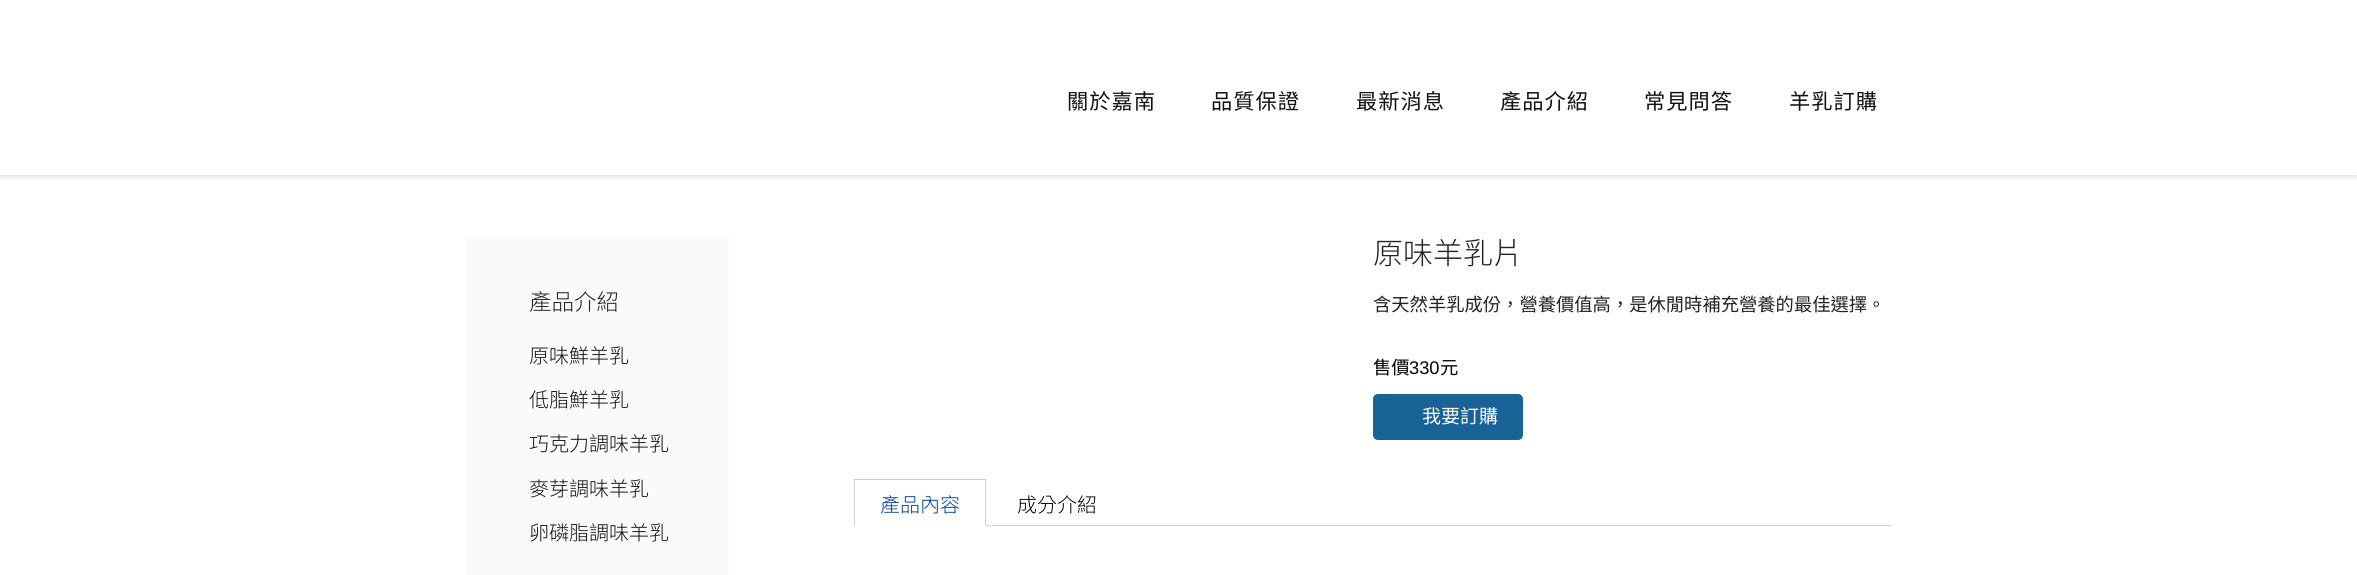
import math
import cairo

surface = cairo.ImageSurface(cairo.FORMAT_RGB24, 2357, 575)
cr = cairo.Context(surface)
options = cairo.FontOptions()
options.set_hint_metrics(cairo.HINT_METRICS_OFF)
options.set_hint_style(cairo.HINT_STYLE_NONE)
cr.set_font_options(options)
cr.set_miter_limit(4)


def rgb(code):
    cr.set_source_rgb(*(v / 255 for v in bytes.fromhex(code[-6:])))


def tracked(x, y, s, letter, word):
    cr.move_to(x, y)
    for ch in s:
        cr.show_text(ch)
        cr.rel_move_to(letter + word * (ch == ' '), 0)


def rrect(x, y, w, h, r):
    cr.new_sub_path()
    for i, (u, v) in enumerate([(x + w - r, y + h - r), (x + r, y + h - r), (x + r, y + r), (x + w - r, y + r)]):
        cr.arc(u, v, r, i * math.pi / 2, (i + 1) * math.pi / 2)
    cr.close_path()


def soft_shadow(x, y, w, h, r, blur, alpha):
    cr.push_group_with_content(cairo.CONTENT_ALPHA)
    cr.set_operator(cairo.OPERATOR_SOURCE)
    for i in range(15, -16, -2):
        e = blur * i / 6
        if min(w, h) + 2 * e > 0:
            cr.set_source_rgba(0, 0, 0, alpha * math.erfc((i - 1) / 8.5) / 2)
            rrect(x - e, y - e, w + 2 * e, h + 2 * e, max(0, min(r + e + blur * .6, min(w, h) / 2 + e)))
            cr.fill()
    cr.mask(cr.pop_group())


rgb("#ffffff")
cr.paint()
cr.save()
cr.rectangle(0, 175, 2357, 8)
cr.clip()
rgb("#cccccc")
soft_shadow(0, 0, 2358, 175, 0, 4, 1)
cr.restore()
rgb("#fafafa")
cr.rectangle(466, 238, 263, 337)
cr.fill()
rgb("#186296")
rrect(1373, 394, 150, 46, 5)
cr.fill()
for x, y, w, h, color in [
    (986, 525, 905, 1, "#cccccc"),
    (854, 479, 132, 1, "#cccccc"),
    (985, 479, 1, 47, "#cccccc"),
    (985, 525, 1, 1, "#ffffff"),
    (854, 479, 1, 47, "#cccccc"),
    (991, 525, 1, 1, "#ffffff"),
]:
    rgb(color)
    cr.rectangle(x, y, w, h)
    cr.fill()
cr.select_font_face("Noto Sans TC")
cr.set_font_size(21.25)
rgb("#111111")
for x, y, s in [
    (1067, 109, "關於嘉南"),
    (1211, 109, "品質保證"),
    (1356, 109, "最新消息"),
    (1500, 109, "產品介紹"),
    (1644, 109, "常見問答"),
    (1789, 109, "羊乳訂購"),
]:
    tracked(x, y, s, 1, 0)
cr.select_font_face("Noto Sans TC Light")
cr.set_font_size(22.5)
rgb("#222222")
cr.move_to(529, 310)
cr.show_text("產品介紹")
cr.set_font_size(20)
rgb("#111111")
for x, y, s in [
    (529, 363, "原味鮮羊乳"),
    (529, 407, "低脂鮮羊乳"),
    (529, 451, "巧克力調味羊乳"),
    (529, 496, "麥芽調味羊乳"),
    (529, 540, "卵磷脂調味羊乳"),
]:
    cr.move_to(x, y)
    cr.show_text(s)
cr.set_font_size(30)
rgb("#222222")
cr.move_to(1373, 264)
cr.show_text("原味羊乳片")
cr.select_font_face("Noto Sans CJK TC")
cr.set_font_size(18.3)
cr.move_to(1373, 311)
cr.show_text("含天然羊乳成份，營養價值高，是休閒時補充營養的最佳選擇。")
rgb("#000000")
cr.move_to(1373, 374)
cr.show_text("售價")
cr.select_font_face("Liberation Sans")
cr.move_to(1409, 374)
cr.show_text("330")
cr.select_font_face("Noto Sans CJK TC")
cr.move_to(1440, 374)
cr.show_text("元")
cr.set_font_size(19)
rgb("#ffffff")
cr.move_to(1422, 423)
cr.show_text("我要訂購")
cr.select_font_face("Noto Sans TC Light")
cr.set_font_size(20)
rgb("#004098")
cr.move_to(880, 512)
cr.show_text("產品內容")
rgb("#000000")
cr.move_to(1017, 512)
cr.show_text("成分介紹")
surface.write_to_png("page.png")
